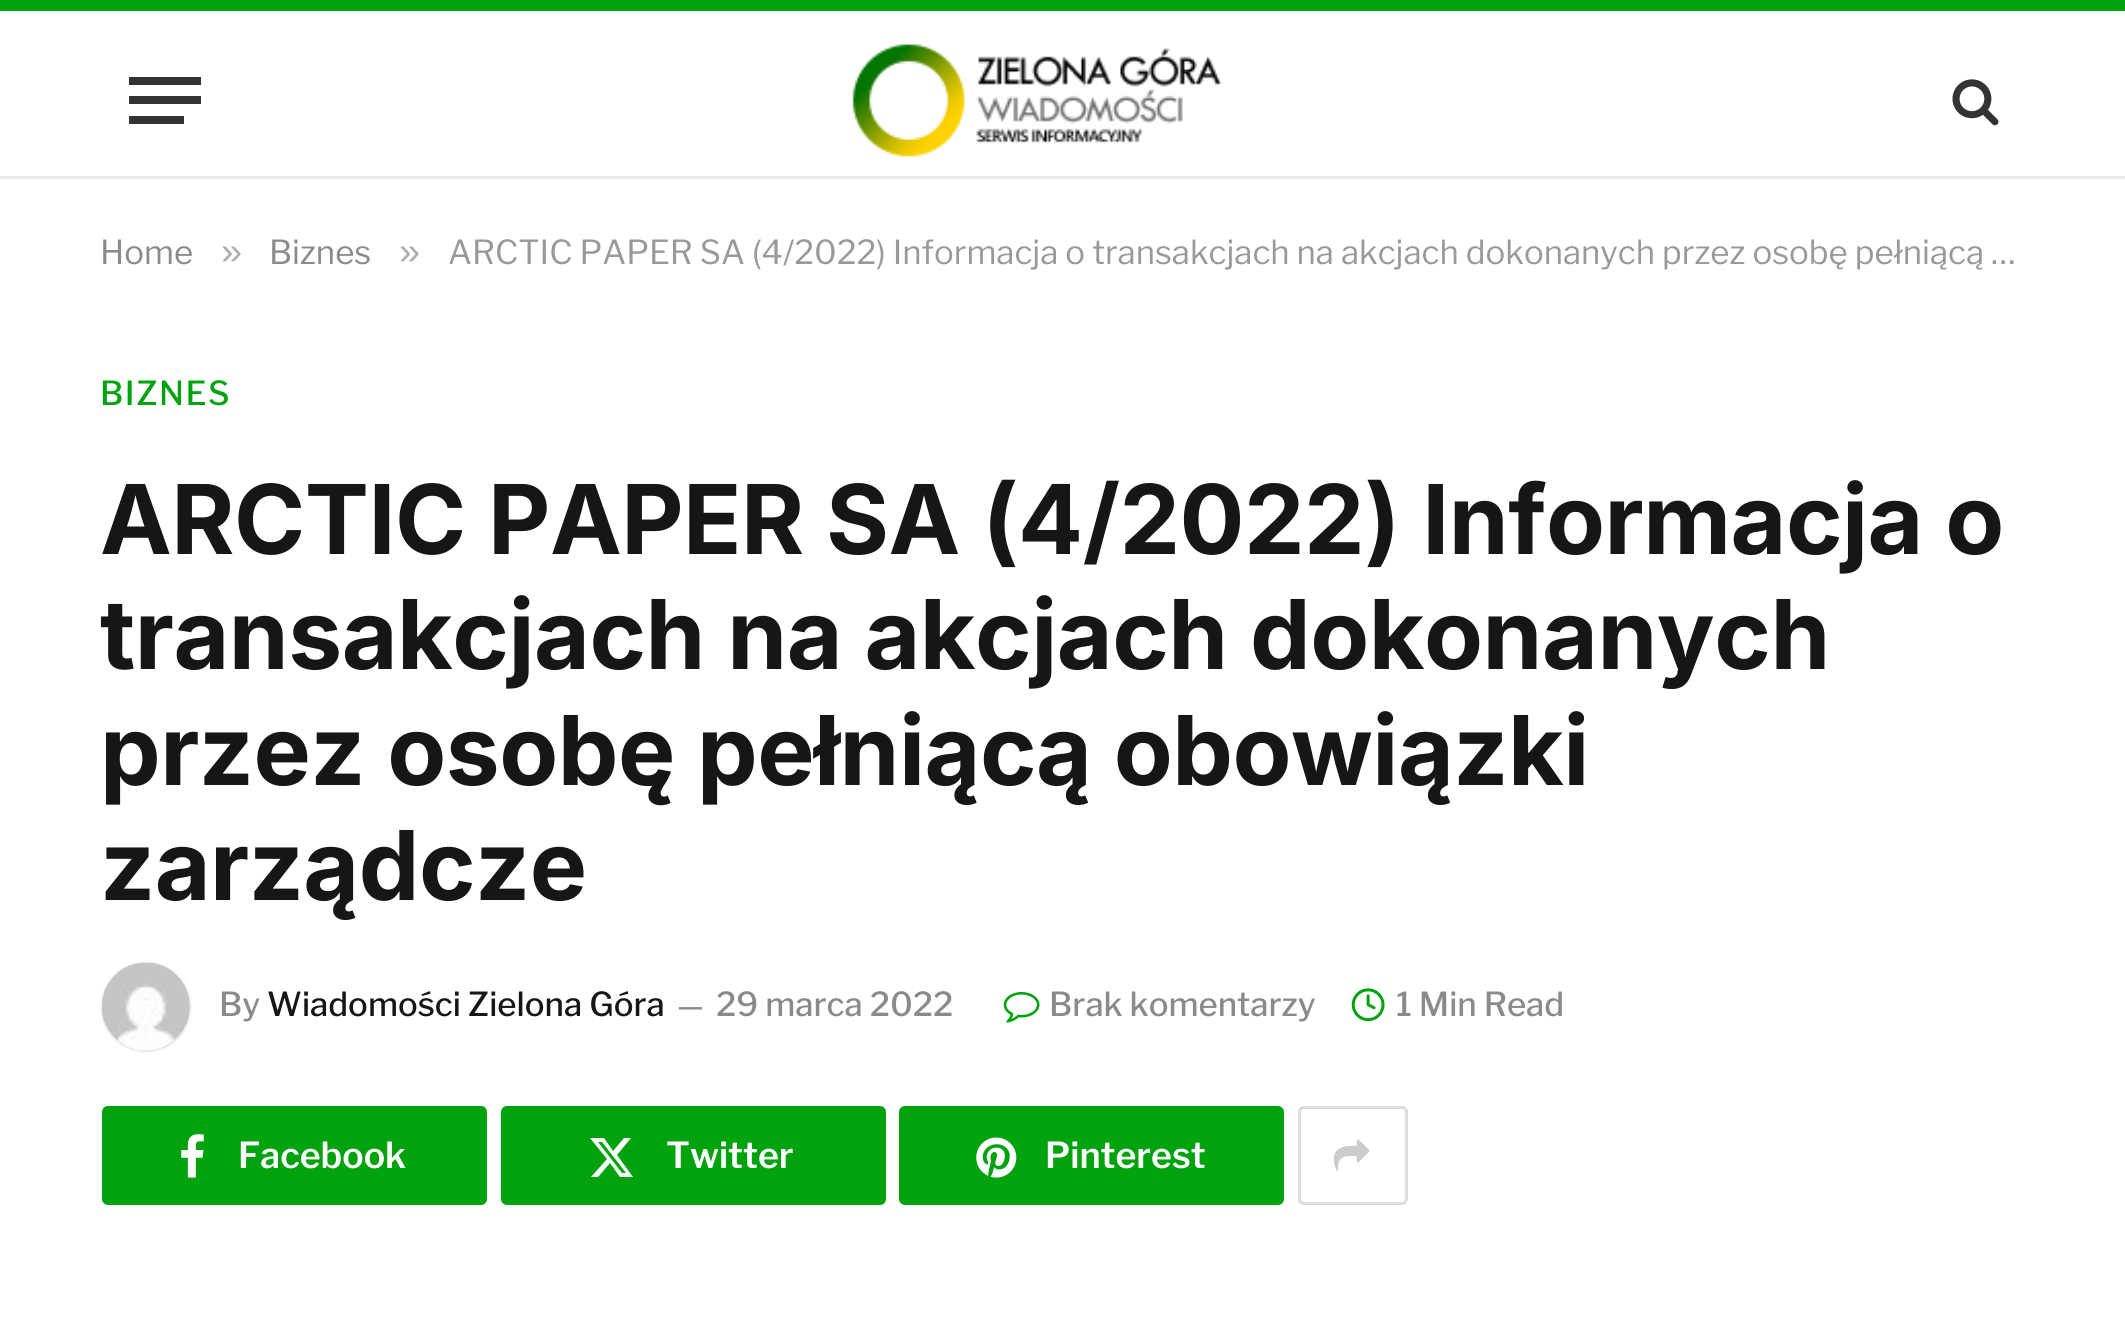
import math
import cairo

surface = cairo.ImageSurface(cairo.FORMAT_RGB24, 2125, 1334)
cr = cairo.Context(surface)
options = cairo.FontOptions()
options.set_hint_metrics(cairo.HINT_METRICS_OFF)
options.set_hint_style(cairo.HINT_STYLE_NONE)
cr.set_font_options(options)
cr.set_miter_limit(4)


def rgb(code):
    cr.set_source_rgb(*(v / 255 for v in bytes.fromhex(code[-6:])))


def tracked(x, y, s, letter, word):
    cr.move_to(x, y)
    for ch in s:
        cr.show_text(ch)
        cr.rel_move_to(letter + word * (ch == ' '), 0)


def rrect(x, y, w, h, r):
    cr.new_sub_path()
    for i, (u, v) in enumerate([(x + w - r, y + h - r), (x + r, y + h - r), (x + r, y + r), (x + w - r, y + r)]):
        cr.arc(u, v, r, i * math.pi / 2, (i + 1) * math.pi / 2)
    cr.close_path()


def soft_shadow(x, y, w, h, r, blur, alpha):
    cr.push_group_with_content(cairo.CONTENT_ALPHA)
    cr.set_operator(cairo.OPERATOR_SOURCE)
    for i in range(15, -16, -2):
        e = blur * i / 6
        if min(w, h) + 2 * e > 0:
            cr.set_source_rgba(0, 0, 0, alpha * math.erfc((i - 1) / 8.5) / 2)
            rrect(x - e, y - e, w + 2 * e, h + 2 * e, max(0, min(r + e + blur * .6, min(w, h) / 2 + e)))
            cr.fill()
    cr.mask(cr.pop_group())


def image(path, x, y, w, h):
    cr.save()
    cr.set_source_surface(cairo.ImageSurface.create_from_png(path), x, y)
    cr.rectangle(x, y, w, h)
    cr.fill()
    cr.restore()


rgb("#ffffff")
cr.paint()
for x, y, w, h, color in [
    (0, 0, 2125, 11, "#00a30d"),
    (0, 176, 2125, 3, "#e8e8e8"),
    (129, 116, 55, 8, "#333333"),
    (129, 77, 72, 8, "#333333"),
    (129, 96, 72, 8, "#333333"),
]:
    rgb(color)
    cr.rectangle(x, y, w, h)
    cr.fill()
image("img/1.png", 852, 44, 370, 113)
image("img/2.png", 1952, 79, 47, 47)
rgb("#000000")
soft_shadow(102, 963, 88, 88, 44, 1.5, 0.2)
image("img/3.png", 102, 962, 88, 89)
image("img/4.png", 1003, 992, 37, 31)
image("img/5.png", 1351, 988, 34, 34)
rgb("#00a30d")
rrect(102, 1106, 385, 99, 6)
cr.fill()
image("img/6.png", 181, 1134, 23, 44)
rrect(501, 1106, 385, 99, 6)
cr.fill()
rgb("#ffffff")
cr.new_path()
cr.move_to(624, 1138)
cr.line_to(631, 1138)
cr.line_to(617, 1155)
cr.line_to(633, 1177)
cr.line_to(620, 1177)
cr.line_to(610, 1163)
cr.line_to(598, 1177)
cr.line_to(591, 1177)
cr.line_to(607, 1159)
cr.line_to(590, 1138)
cr.line_to(604, 1138)
cr.line_to(613, 1151)
cr.close_path()
cr.move_to(622, 1173)
cr.line_to(626, 1173)
cr.line_to(602, 1142)
cr.line_to(598, 1142)
cr.close_path()
cr.fill()
rgb("#00a30d")
rrect(899, 1106, 385, 99, 6)
cr.fill()
image("img/7.png", 976, 1137, 41, 41)
rrect(1299.5, 1107.5, 107, 96, 4.5)
rgb("#dddddd")
cr.set_line_width(3)
cr.stroke()
image("img/8.png", 1333, 1139, 37, 33)
cr.select_font_face("Libre Franklin")
cr.set_font_size(33)
rgb("#8a8a8a")
cr.move_to(100, 264)
cr.show_text("Home")
cr.select_font_face("Liberation Sans")
cr.set_font_size(38)
rgb("#adadad")
cr.move_to(221, 264)
cr.show_text("»")
cr.select_font_face("Libre Franklin")
cr.set_font_size(33)
rgb("#8a8a8a")
cr.move_to(269, 264)
cr.show_text("Biznes")
cr.select_font_face("Liberation Sans")
cr.set_font_size(38)
rgb("#adadad")
cr.move_to(399, 264)
cr.show_text("»")
cr.select_font_face("Libre Franklin")
cr.set_font_size(33)
rgb("#999999")
cr.move_to(448, 264)
cr.show_text("ARCTIC PAPER SA (4/2022) Informacja o transakcjach na akcjach dokonanych przez osobę pełniącą …")
cr.select_font_face("Libre Franklin Medium")
rgb("#00a30d")
tracked(100, 405, "BIZNES", 1.5, 0)
cr.select_font_face("Inter", cairo.FONT_SLANT_NORMAL, cairo.FONT_WEIGHT_BOLD)
cr.set_font_size(96.25)
rgb("#161616")
for x, y, s in [
    (100, 554, "ARCTIC PAPER SA (4/2022) Informacja o"),
    (100, 669, "transakcjach na akcjach dokonanych"),
    (100, 785, "przez osobę pełniącą obowiązki"),
    (100, 900, "zarządcze"),
]:
    tracked(x, y, s, -0.5, 0)
cr.select_font_face("Libre Franklin Medium")
cr.set_font_size(33)
rgb("#8a8a8a")
cr.move_to(219, 1016)
cr.show_text("By")
rgb("#161616")
cr.move_to(267, 1016)
cr.show_text("Wiadomości Zielona Góra")
cr.set_font_size(30)
rgb("#8a8a8a")
cr.move_to(677, 1016)
cr.show_text("—")
cr.set_font_size(33)
for x, y, s in [
    (716, 1016, "29 marca 2022"),
    (1049, 1016, "Brak komentarzy"),
    (1396, 1016, "1 Min Read"),
]:
    cr.move_to(x, y)
    cr.show_text(s)
cr.select_font_face("Libre Franklin SemiBold")
cr.set_font_size(35.75)
rgb("#ffffff")
for x, y, s in [
    (238, 1168, "Facebook"),
    (666, 1168, "Twitter"),
    (1045, 1168, "Pinterest"),
]:
    cr.move_to(x, y)
    cr.show_text(s)
surface.write_to_png("page.png")
